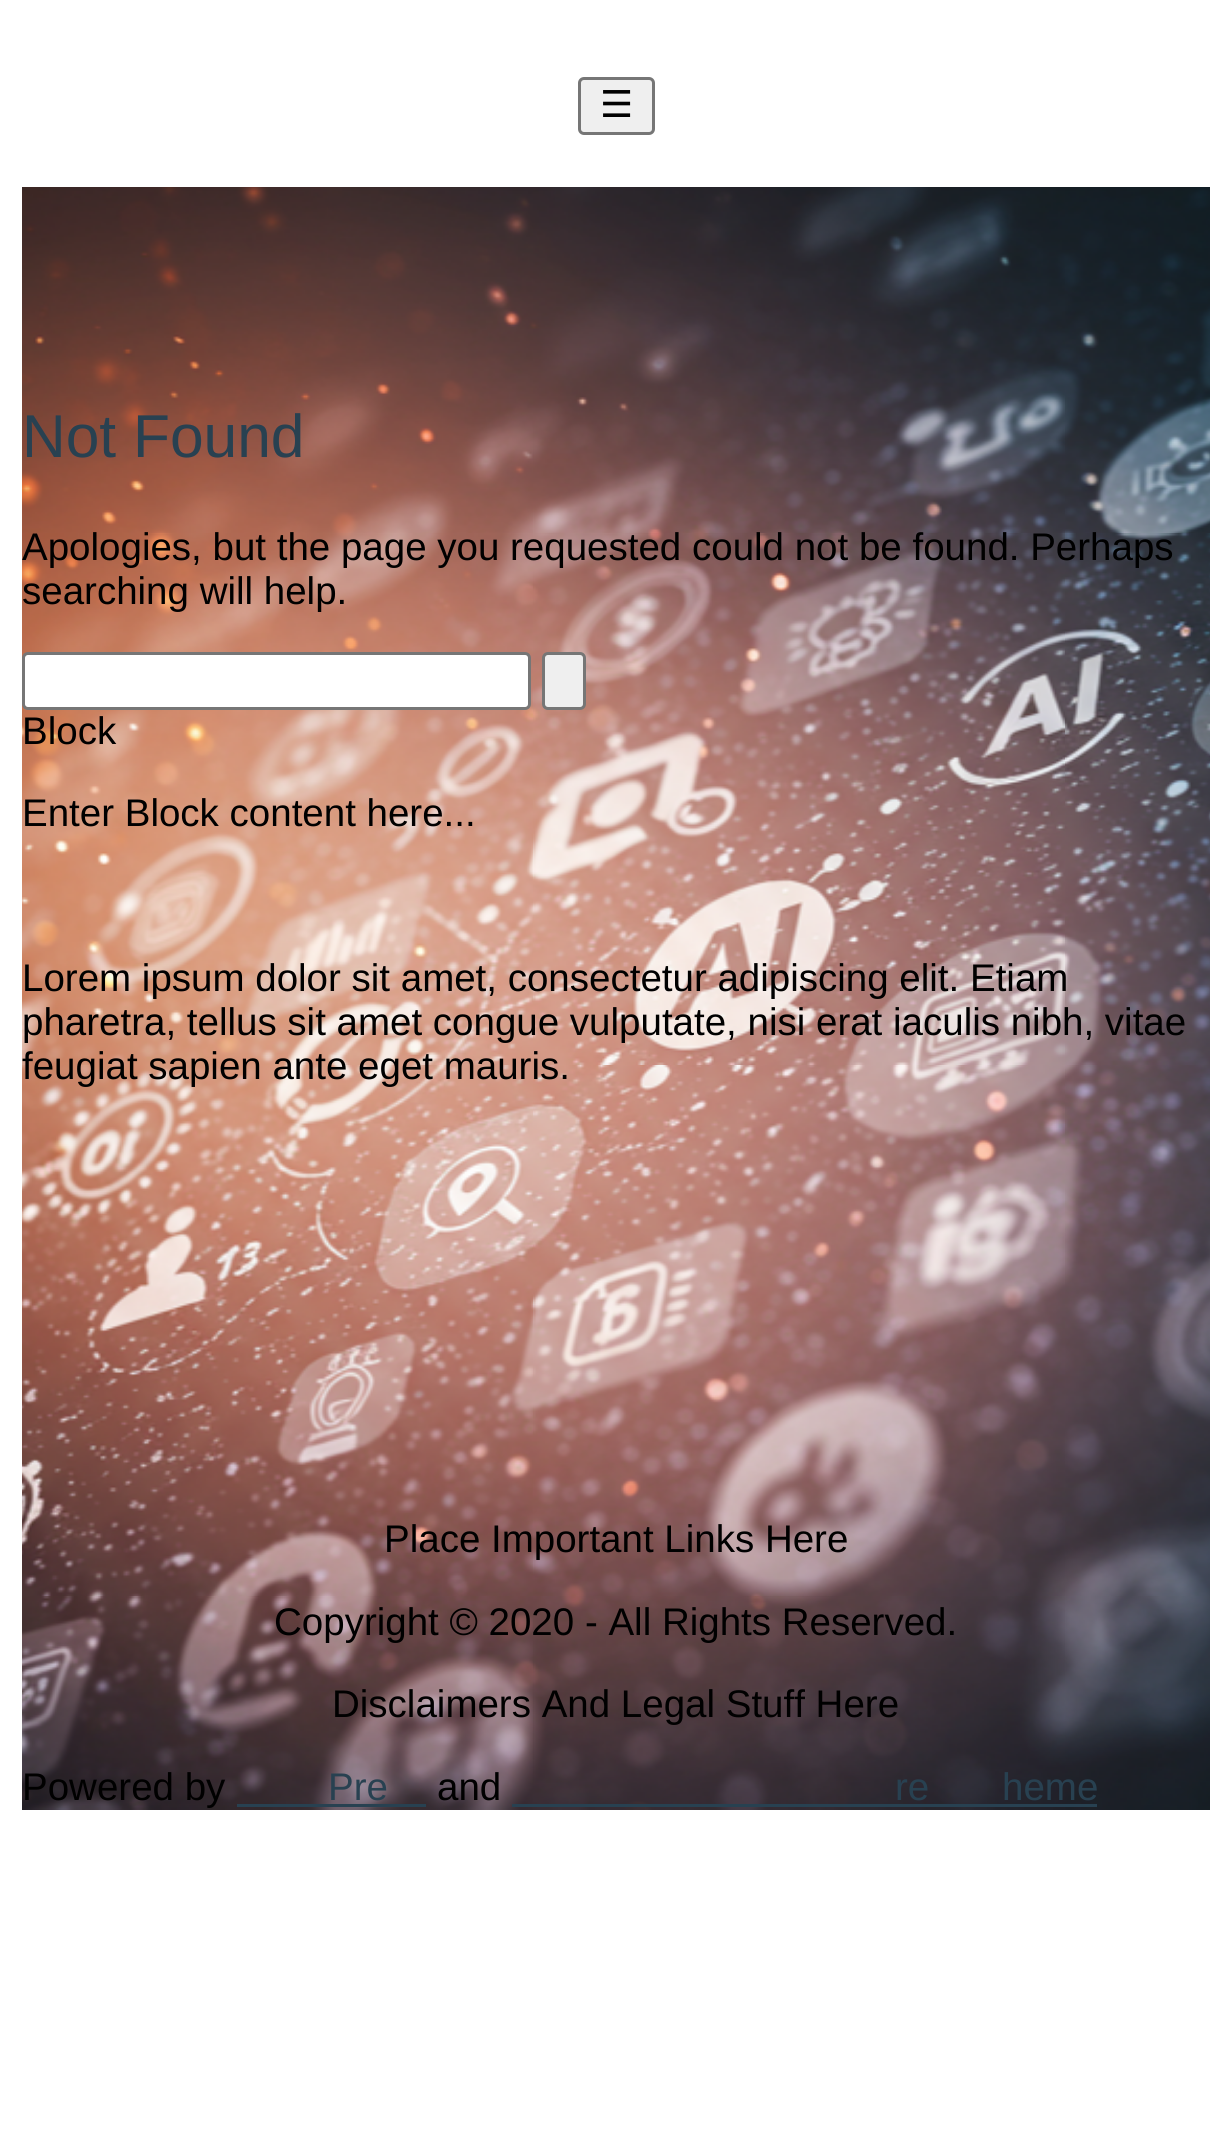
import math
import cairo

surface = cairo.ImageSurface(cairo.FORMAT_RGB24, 1231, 2141)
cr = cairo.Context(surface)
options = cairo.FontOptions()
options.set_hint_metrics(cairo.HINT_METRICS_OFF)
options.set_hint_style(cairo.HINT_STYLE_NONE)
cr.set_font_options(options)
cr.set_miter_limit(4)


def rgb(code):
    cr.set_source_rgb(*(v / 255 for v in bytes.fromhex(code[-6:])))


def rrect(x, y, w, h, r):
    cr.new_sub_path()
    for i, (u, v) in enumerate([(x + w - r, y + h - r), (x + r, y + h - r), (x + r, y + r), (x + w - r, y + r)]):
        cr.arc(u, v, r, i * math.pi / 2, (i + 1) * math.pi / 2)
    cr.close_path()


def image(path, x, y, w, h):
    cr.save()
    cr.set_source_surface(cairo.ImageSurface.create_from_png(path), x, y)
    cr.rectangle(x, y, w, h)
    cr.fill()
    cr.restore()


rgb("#ffffff")
cr.paint()
rgb("#efefef")
rrect(579.5, 78.5, 74, 55, 4.5)
cr.fill_preserve()
rgb("#767676")
cr.set_line_width(3)
cr.stroke()
image("img/1.png", 22, 187, 1188, 1623)
rgb("#ffffff")
rrect(23.5, 653.5, 506, 55, 4.5)
cr.fill_preserve()
rgb("#767676")
cr.stroke()
rgb("#efefef")
rrect(543.5, 653.5, 41, 55, 4.5)
cr.fill_preserve()
rgb("#767676")
cr.stroke()
rgb("#284151")
cr.rectangle(237, 1804, 189, 3)
cr.fill()
cr.rectangle(512, 1804, 585, 3)
cr.fill()
cr.select_font_face("DejaVu Sans")
cr.set_font_size(37)
rgb("#000000")
cr.move_to(600, 117)
cr.show_text("☰")
cr.select_font_face("Liberation Sans")
cr.set_font_size(60.5)
rgb("#284151")
cr.move_to(22, 457)
cr.show_text("Not Found")
cr.set_font_size(38.5)
rgb("#000000")
for x, y, s in [
    (22, 560, "Apologies, but the page you requested could not be found. Perhaps"),
    (22, 604, "searching will help."),
    (22, 744, "Block"),
    (22, 826, "Enter Block content here..."),
    (22, 991, "Lorem ipsum dolor sit amet, consectetur adipiscing elit. Etiam"),
    (22, 1035, "pharetra, tellus sit amet congue vulputate, nisi erat iaculis nibh, vitae"),
    (22, 1079, "feugiat sapien ante eget mauris."),
    (384, 1552, "Place Important Links Here"),
    (274, 1635, "Copyright © 2020 - All Rights Reserved."),
    (332, 1717, "Disclaimers And Legal Stuff Here"),
    (22, 1800, "Powered by"),
]:
    cr.move_to(x, y)
    cr.show_text(s)
rgb("#284151")
cr.move_to(328, 1800)
cr.show_text("Pre")
rgb("#000000")
cr.move_to(437, 1800)
cr.show_text("and")
rgb("#284151")
cr.move_to(895, 1800)
cr.show_text("re")
cr.move_to(1002, 1800)
cr.show_text("heme")
surface.write_to_png("page.png")
